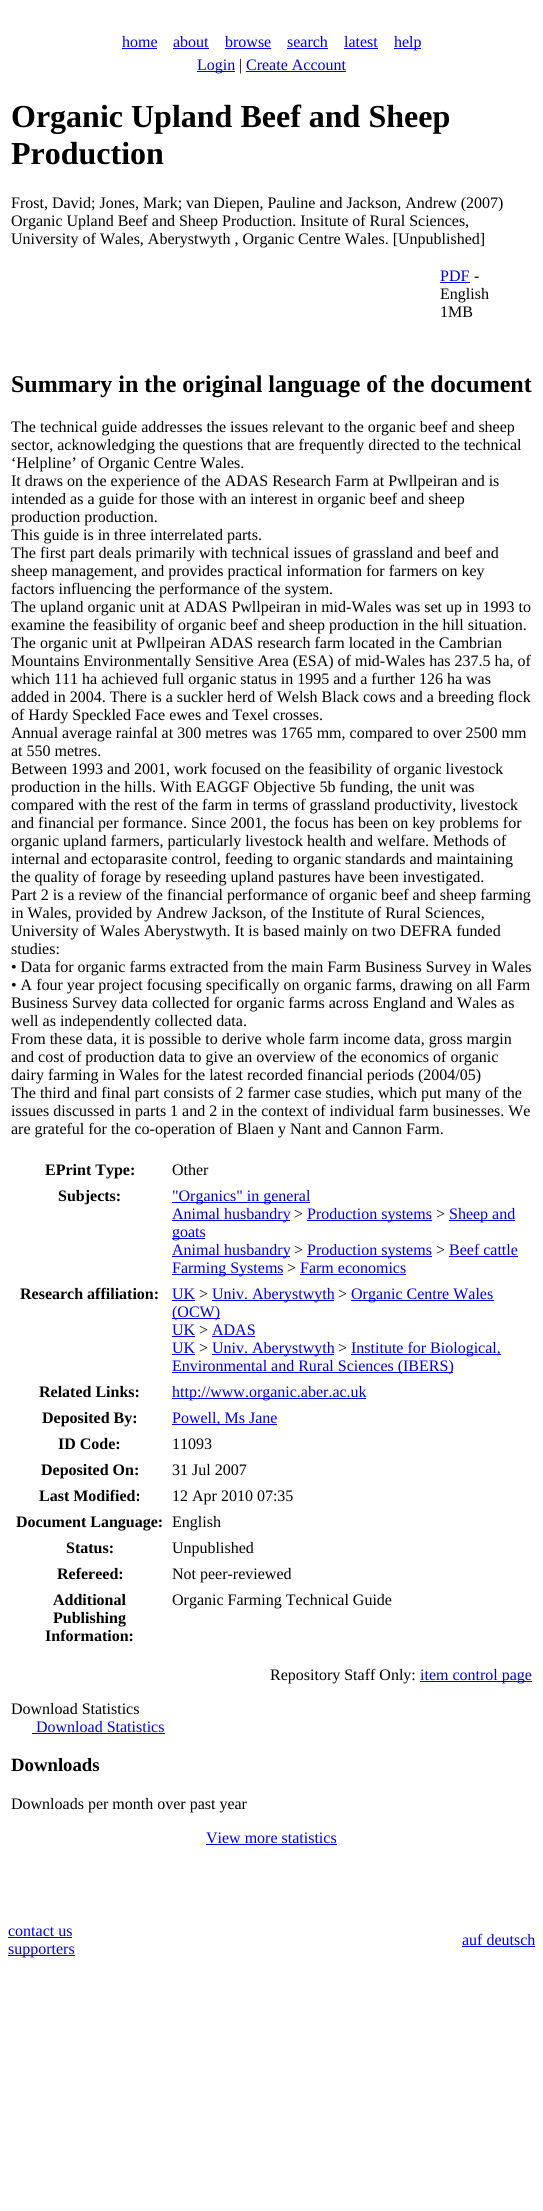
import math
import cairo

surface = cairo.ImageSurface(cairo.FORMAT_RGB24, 543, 2211)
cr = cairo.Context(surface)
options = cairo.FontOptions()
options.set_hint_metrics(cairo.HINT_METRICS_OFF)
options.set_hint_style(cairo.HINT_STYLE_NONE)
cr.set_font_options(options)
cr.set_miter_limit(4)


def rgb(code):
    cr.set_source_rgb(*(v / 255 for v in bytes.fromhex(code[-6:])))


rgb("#ffffff")
cr.paint()
for x, y, w, h, color in [
    (122, 48, 35, 1, "#0000ee"),
    (173, 48, 36, 1, "#0000ee"),
    (225, 48, 46, 1, "#0000ee"),
    (287, 48, 41, 1, "#0000ee"),
    (344, 48, 34, 1, "#0000ee"),
    (394, 48, 27, 1, "#0000ee"),
    (197, 71, 38, 1, "#0000ee"),
    (246, 71, 100, 1, "#0000ee"),
    (440, 282, 30, 1, "#0000ee"),
    (172, 1202, 138, 1, "#0000ee"),
    (172, 1220, 118, 1, "#0000ee"),
    (307, 1220, 125, 1, "#0000ee"),
    (449, 1220, 66, 1, "#0000ee"),
    (172, 1238, 33, 1, "#0000ee"),
    (172, 1256, 118, 1, "#0000ee"),
    (307, 1256, 125, 1, "#0000ee"),
    (449, 1256, 69, 1, "#0000ee"),
    (172, 1274, 111, 1, "#0000ee"),
    (300, 1274, 106, 1, "#0000ee"),
    (172, 1300, 23, 1, "#0000ee"),
    (212, 1300, 122, 1, "#0000ee"),
    (351, 1300, 143, 1, "#0000ee"),
    (172, 1318, 48, 1, "#0000ee"),
    (172, 1336, 23, 1, "#0000ee"),
    (212, 1336, 43, 1, "#0000ee"),
    (172, 1354, 23, 1, "#0000ee"),
    (212, 1354, 122, 1, "#0000ee"),
    (351, 1354, 150, 1, "#0000ee"),
    (172, 1372, 281, 1, "#0000ee"),
    (172, 1398, 194, 1, "#0000ee"),
    (172, 1424, 105, 1, "#0000ee"),
    (420, 1681, 112, 1, "#0000ee"),
    (32, 1733, 133, 1, "#0000ee"),
    (206, 1844, 131, 1, "#0000ee"),
    (8, 1937, 64, 1, "#0000ee"),
    (8, 1955, 67, 1, "#0000ee"),
    (462, 1946, 73, 1, "#0000ee"),
]:
    rgb(color)
    cr.rectangle(x, y, w, h)
    cr.fill()
cr.select_font_face("Liberation Serif")
cr.set_font_size(16)
for x, y, s in [
    (122, 47, "home"),
    (173, 47, "about"),
    (225, 47, "browse"),
    (287, 47, "search"),
    (344, 47, "latest"),
    (394, 47, "help"),
    (197, 70, "Login"),
]:
    cr.move_to(x, y)
    cr.show_text(s)
rgb("#000000")
cr.move_to(239, 70)
cr.show_text("|")
rgb("#0000ee")
cr.move_to(246, 70)
cr.show_text("Create Account")
cr.select_font_face("Liberation Serif", cairo.FONT_SLANT_NORMAL, cairo.FONT_WEIGHT_BOLD)
cr.set_font_size(32)
rgb("#000000")
cr.move_to(11, 127)
cr.show_text("Organic Upland Beef and Sheep")
cr.move_to(11, 164)
cr.show_text("Production")
cr.select_font_face("Liberation Serif")
cr.set_font_size(16)
for x, y, s in [
    (11, 208, "Frost, David; Jones, Mark; van Diepen, Pauline and Jackson, Andrew (2007)"),
    (11, 226, "Organic Upland Beef and Sheep Production. Insitute of Rural Sciences,"),
    (11, 244, "University of Wales, Aberystwyth , Organic Centre Wales. [Unpublished]"),
]:
    cr.move_to(x, y)
    cr.show_text(s)
rgb("#0000ee")
cr.move_to(440, 281)
cr.show_text("PDF")
rgb("#000000")
for x, y, s in [
    (474, 281, "-"),
    (440, 299, "English"),
    (440, 317, "1MB"),
]:
    cr.move_to(x, y)
    cr.show_text(s)
cr.select_font_face("Liberation Serif", cairo.FONT_SLANT_NORMAL, cairo.FONT_WEIGHT_BOLD)
cr.set_font_size(24)
cr.move_to(11, 392)
cr.show_text("Summary in the original language of the document")
cr.select_font_face("Liberation Serif")
cr.set_font_size(16)
for x, y, s in [
    (11, 432, "The technical guide addresses the issues relevant to the organic beef and sheep"),
    (11, 450, "sector, acknowledging the questions that are frequently directed to the technical"),
    (11, 468, "‘Helpline’ of Organic Centre Wales."),
    (11, 486, "It draws on the experience of the ADAS Research Farm at Pwllpeiran and is"),
    (11, 504, "intended as a guide for those with an interest in organic beef and sheep"),
    (11, 522, "production production."),
    (11, 540, "This guide is in three interrelated parts."),
    (11, 558, "The first part deals primarily with technical issues of grassland and beef and"),
    (11, 576, "sheep management, and provides practical information for farmers on key"),
    (11, 594, "factors influencing the performance of the system."),
    (11, 612, "The upland organic unit at ADAS Pwllpeiran in mid-Wales was set up in 1993 to"),
    (11, 630, "examine the feasibility of organic beef and sheep production in the hill situation."),
    (11, 648, "The organic unit at Pwllpeiran ADAS research farm located in the Cambrian"),
    (11, 666, "Mountains Environmentally Sensitive Area (ESA) of mid-Wales has 237.5 ha, of"),
    (11, 684, "which 111 ha achieved full organic status in 1995 and a further 126 ha was"),
    (11, 702, "added in 2004. There is a suckler herd of Welsh Black cows and a breeding flock"),
    (11, 720, "of Hardy Speckled Face ewes and Texel crosses."),
    (11, 738, "Annual average rainfal at 300 metres was 1765 mm, compared to over 2500 mm"),
    (11, 756, "at 550 metres."),
    (11, 774, "Between 1993 and 2001, work focused on the feasibility of organic livestock"),
    (11, 792, "production in the hills. With EAGGF Objective 5b funding, the unit was"),
    (11, 810, "compared with the rest of the farm in terms of grassland productivity, livestock"),
    (11, 828, "and financial per formance. Since 2001, the focus has been on key problems for"),
    (11, 846, "organic upland farmers, particularly livestock health and welfare. Methods of"),
    (11, 864, "internal and ectoparasite control, feeding to organic standards and maintaining"),
    (11, 882, "the quality of forage by reseeding upland pastures have been investigated."),
    (11, 900, "Part 2 is a review of the financial performance of organic beef and sheep farming"),
    (11, 918, "in Wales, provided by Andrew Jackson, of the Institute of Rural Sciences,"),
    (11, 936, "University of Wales Aberystwyth. It is based mainly on two DEFRA funded"),
    (11, 954, "studies:"),
    (11, 972, "• Data for organic farms extracted from the main Farm Business Survey in Wales"),
    (11, 990, "• A four year project focusing specifically on organic farms, drawing on all Farm"),
    (11, 1008, "Business Survey data collected for organic farms across England and Wales as"),
    (11, 1026, "well as independently collected data."),
    (11, 1044, "From these data, it is possible to derive whole farm income data, gross margin"),
    (11, 1062, "and cost of production data to give an overview of the economics of organic"),
    (11, 1080, "dairy farming in Wales for the latest recorded financial periods (2004/05)"),
    (11, 1098, "The third and final part consists of 2 farmer case studies, which put many of the"),
    (11, 1116, "issues discussed in parts 1 and 2 in the context of individual farm businesses. We"),
    (11, 1134, "are grateful for the co-operation of Blaen y Nant and Cannon Farm."),
]:
    cr.move_to(x, y)
    cr.show_text(s)
cr.select_font_face("Liberation Serif", cairo.FONT_SLANT_NORMAL, cairo.FONT_WEIGHT_BOLD)
cr.move_to(45, 1175)
cr.show_text("EPrint Type:")
cr.select_font_face("Liberation Serif")
cr.move_to(172, 1175)
cr.show_text("Other")
cr.select_font_face("Liberation Serif", cairo.FONT_SLANT_NORMAL, cairo.FONT_WEIGHT_BOLD)
cr.move_to(58, 1201)
cr.show_text("Subjects:")
cr.select_font_face("Liberation Serif")
rgb("#0000ee")
cr.move_to(172, 1201)
cr.show_text("\"Organics\" in general")
cr.move_to(172, 1219)
cr.show_text("Animal husbandry")
rgb("#000000")
cr.move_to(294, 1219)
cr.show_text(">")
rgb("#0000ee")
cr.move_to(307, 1219)
cr.show_text("Production systems")
rgb("#000000")
cr.move_to(436, 1219)
cr.show_text(">")
rgb("#0000ee")
for x, y, s in [
    (449, 1219, "Sheep and"),
    (172, 1237, "goats"),
    (172, 1255, "Animal husbandry"),
]:
    cr.move_to(x, y)
    cr.show_text(s)
rgb("#000000")
cr.move_to(294, 1255)
cr.show_text(">")
rgb("#0000ee")
cr.move_to(307, 1255)
cr.show_text("Production systems")
rgb("#000000")
cr.move_to(436, 1255)
cr.show_text(">")
rgb("#0000ee")
cr.move_to(449, 1255)
cr.show_text("Beef cattle")
cr.move_to(172, 1273)
cr.show_text("Farming Systems")
rgb("#000000")
cr.move_to(287, 1273)
cr.show_text(">")
rgb("#0000ee")
cr.move_to(300, 1273)
cr.show_text("Farm economics")
cr.select_font_face("Liberation Serif", cairo.FONT_SLANT_NORMAL, cairo.FONT_WEIGHT_BOLD)
rgb("#000000")
cr.move_to(20, 1299)
cr.show_text("Research affiliation:")
cr.select_font_face("Liberation Serif")
rgb("#0000ee")
cr.move_to(172, 1299)
cr.show_text("UK")
rgb("#000000")
cr.move_to(199, 1299)
cr.show_text(">")
rgb("#0000ee")
cr.move_to(212, 1299)
cr.show_text("Univ. Aberystwyth")
rgb("#000000")
cr.move_to(338, 1299)
cr.show_text(">")
rgb("#0000ee")
for x, y, s in [
    (351, 1299, "Organic Centre Wales"),
    (172, 1317, "(OCW)"),
    (172, 1335, "UK"),
]:
    cr.move_to(x, y)
    cr.show_text(s)
rgb("#000000")
cr.move_to(199, 1335)
cr.show_text(">")
rgb("#0000ee")
cr.move_to(212, 1335)
cr.show_text("ADAS")
cr.move_to(172, 1353)
cr.show_text("UK")
rgb("#000000")
cr.move_to(199, 1353)
cr.show_text(">")
rgb("#0000ee")
cr.move_to(212, 1353)
cr.show_text("Univ. Aberystwyth")
rgb("#000000")
cr.move_to(338, 1353)
cr.show_text(">")
rgb("#0000ee")
cr.move_to(351, 1353)
cr.show_text("Institute for Biological,")
cr.move_to(172, 1371)
cr.show_text("Environmental and Rural Sciences (IBERS)")
cr.select_font_face("Liberation Serif", cairo.FONT_SLANT_NORMAL, cairo.FONT_WEIGHT_BOLD)
rgb("#000000")
cr.move_to(39, 1397)
cr.show_text("Related Links:")
cr.select_font_face("Liberation Serif")
rgb("#0000ee")
cr.move_to(172, 1397)
cr.show_text("http://www.organic.aber.ac.uk")
cr.select_font_face("Liberation Serif", cairo.FONT_SLANT_NORMAL, cairo.FONT_WEIGHT_BOLD)
rgb("#000000")
cr.move_to(42, 1423)
cr.show_text("Deposited By:")
cr.select_font_face("Liberation Serif")
rgb("#0000ee")
cr.move_to(172, 1423)
cr.show_text("Powell, Ms Jane")
cr.select_font_face("Liberation Serif", cairo.FONT_SLANT_NORMAL, cairo.FONT_WEIGHT_BOLD)
rgb("#000000")
cr.move_to(58, 1449)
cr.show_text("ID Code:")
cr.select_font_face("Liberation Serif")
cr.move_to(172, 1449)
cr.show_text("11093")
cr.select_font_face("Liberation Serif", cairo.FONT_SLANT_NORMAL, cairo.FONT_WEIGHT_BOLD)
cr.move_to(41, 1475)
cr.show_text("Deposited On:")
cr.select_font_face("Liberation Serif")
cr.move_to(172, 1475)
cr.show_text("31 Jul 2007")
cr.select_font_face("Liberation Serif", cairo.FONT_SLANT_NORMAL, cairo.FONT_WEIGHT_BOLD)
cr.move_to(39, 1501)
cr.show_text("Last Modified:")
cr.select_font_face("Liberation Serif")
cr.move_to(172, 1501)
cr.show_text("12 Apr 2010 07:35")
cr.select_font_face("Liberation Serif", cairo.FONT_SLANT_NORMAL, cairo.FONT_WEIGHT_BOLD)
cr.move_to(16, 1527)
cr.show_text("Document Language:")
cr.select_font_face("Liberation Serif")
cr.move_to(172, 1527)
cr.show_text("English")
cr.select_font_face("Liberation Serif", cairo.FONT_SLANT_NORMAL, cairo.FONT_WEIGHT_BOLD)
cr.move_to(66, 1553)
cr.show_text("Status:")
cr.select_font_face("Liberation Serif")
cr.move_to(172, 1553)
cr.show_text("Unpublished")
cr.select_font_face("Liberation Serif", cairo.FONT_SLANT_NORMAL, cairo.FONT_WEIGHT_BOLD)
cr.move_to(57, 1579)
cr.show_text("Refereed:")
cr.select_font_face("Liberation Serif")
cr.move_to(172, 1579)
cr.show_text("Not peer-reviewed")
cr.select_font_face("Liberation Serif", cairo.FONT_SLANT_NORMAL, cairo.FONT_WEIGHT_BOLD)
for x, y, s in [
    (53, 1605, "Additional"),
    (53, 1623, "Publishing"),
    (45, 1641, "Information:"),
]:
    cr.move_to(x, y)
    cr.show_text(s)
cr.select_font_face("Liberation Serif")
cr.move_to(172, 1605)
cr.show_text("Organic Farming Technical Guide")
cr.move_to(270, 1680)
cr.show_text("Repository Staff Only:")
rgb("#0000ee")
cr.move_to(420, 1680)
cr.show_text("item control page")
rgb("#000000")
cr.move_to(11, 1714)
cr.show_text("Download Statistics")
rgb("#0000ee")
cr.move_to(36, 1732)
cr.show_text("Download Statistics")
cr.select_font_face("Liberation Serif", cairo.FONT_SLANT_NORMAL, cairo.FONT_WEIGHT_BOLD)
cr.set_font_size(18.75)
rgb("#000000")
cr.move_to(11, 1771)
cr.show_text("Downloads")
cr.select_font_face("Liberation Serif")
cr.set_font_size(16)
cr.move_to(11, 1809)
cr.show_text("Downloads per month over past year")
rgb("#0000ee")
for x, y, s in [
    (206, 1843, "View more statistics"),
    (8, 1936, "contact us"),
    (8, 1954, "supporters"),
    (462, 1945, "auf deutsch"),
]:
    cr.move_to(x, y)
    cr.show_text(s)
surface.write_to_png("page.png")
